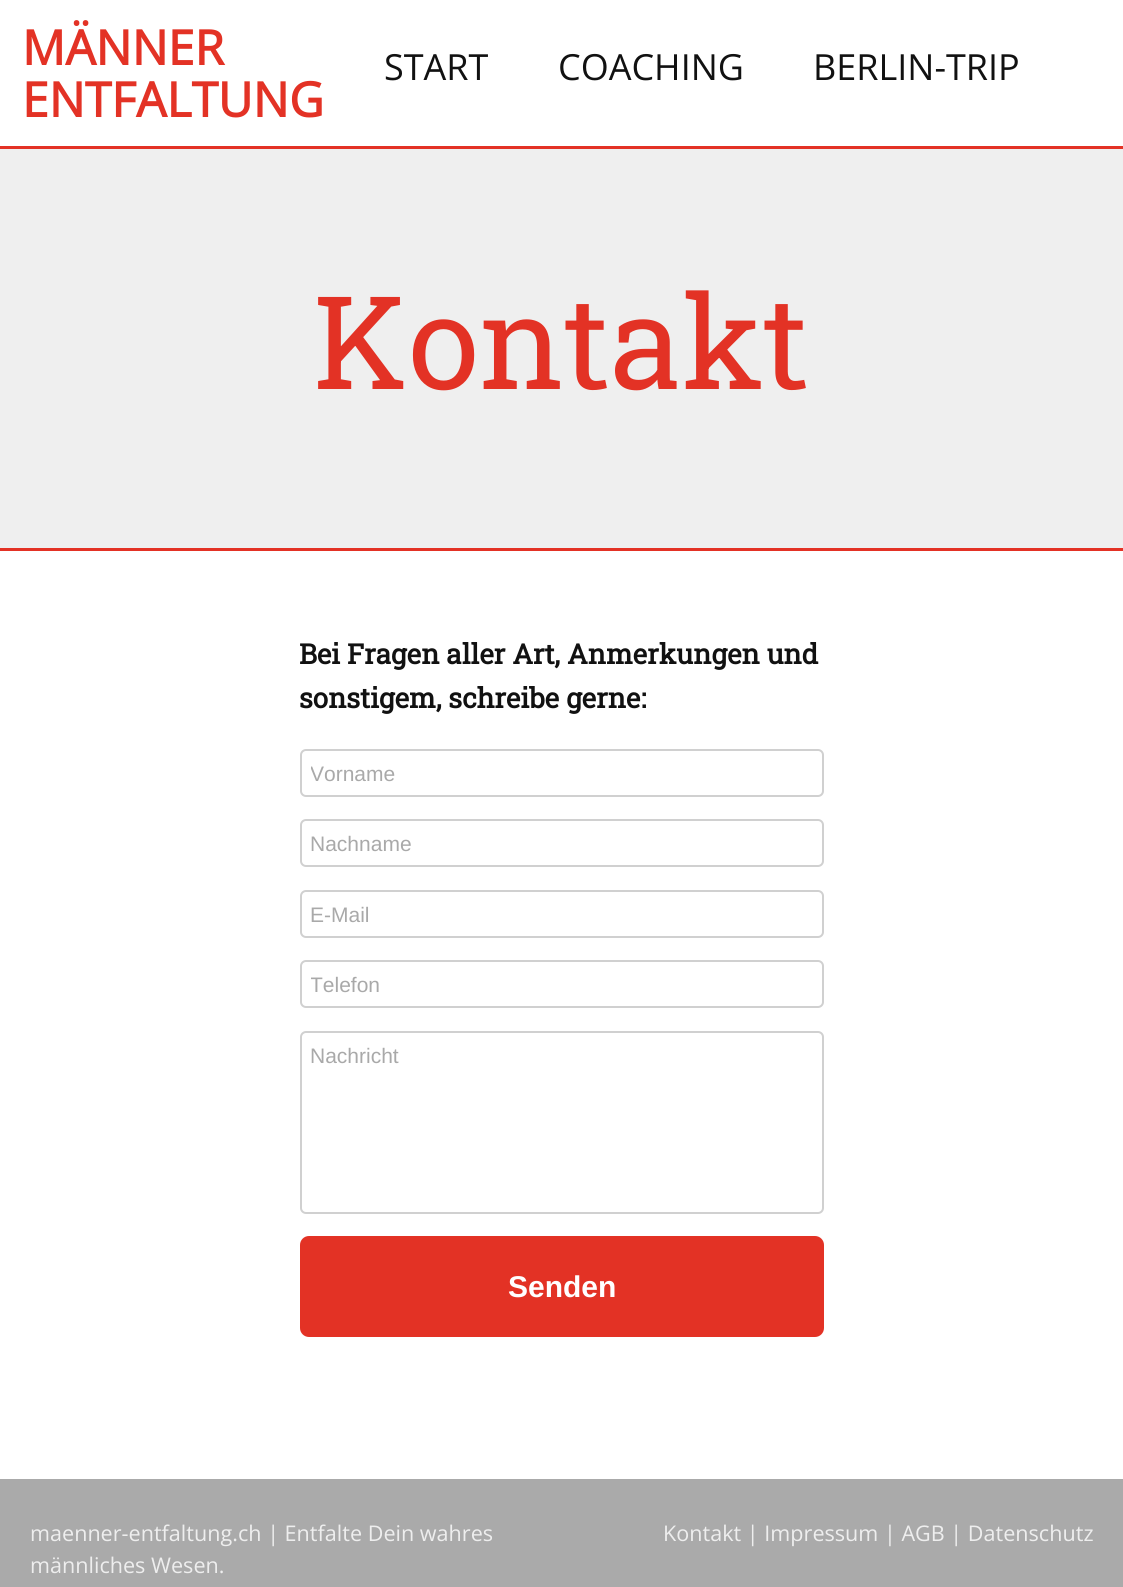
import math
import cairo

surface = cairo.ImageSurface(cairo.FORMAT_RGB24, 1123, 1587)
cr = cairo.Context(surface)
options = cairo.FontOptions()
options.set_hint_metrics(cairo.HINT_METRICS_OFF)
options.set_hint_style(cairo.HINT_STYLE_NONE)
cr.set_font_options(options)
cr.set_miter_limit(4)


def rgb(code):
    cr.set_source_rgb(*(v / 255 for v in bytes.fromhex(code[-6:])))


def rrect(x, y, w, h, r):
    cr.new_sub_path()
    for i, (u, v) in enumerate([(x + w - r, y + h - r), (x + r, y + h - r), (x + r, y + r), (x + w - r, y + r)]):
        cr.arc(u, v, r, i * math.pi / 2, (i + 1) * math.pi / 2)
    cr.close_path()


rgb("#ffffff")
cr.paint()
for x, y, w, h, color in [
    (0, 149, 1123, 399, "#efefef"),
    (0, 146, 1123, 3, "#e33225"),
    (0, 548, 1123, 3, "#e33225"),
]:
    rgb(color)
    cr.rectangle(x, y, w, h)
    cr.fill()
rrect(301, 750, 522, 46, 5)
rgb("#d0d0d0")
cr.stroke()
rrect(301, 820, 522, 46, 5)
cr.stroke()
rrect(301, 891, 522, 46, 5)
cr.stroke()
rrect(301, 961, 522, 46, 5)
cr.stroke()
rrect(301, 1032, 522, 181, 5)
cr.stroke()
rgb("#e33225")
rrect(301.5, 1237.5, 521, 98, 7.5)
cr.fill_preserve()
cr.set_line_width(3)
cr.stroke()
rgb("#aaaaaa")
cr.rectangle(0, 1479, 1123, 108)
cr.fill()
cr.select_font_face("Open Sans", cairo.FONT_SLANT_NORMAL, cairo.FONT_WEIGHT_BOLD)
cr.set_font_size(48)
rgb("#e33225")
cr.move_to(22, 65)
cr.show_text("MÄNNER")
cr.move_to(22, 117)
cr.show_text("ENTFALTUNG")
cr.select_font_face("Open Sans")
cr.set_font_size(36)
rgb("#111111")
for x, y, s in [
    (384, 80, "START"),
    (558, 80, "COACHING"),
    (813, 80, "BERLIN-TRIP"),
]:
    cr.move_to(x, y)
    cr.show_text(s)
cr.select_font_face("Roboto Slab")
cr.set_font_size(129.5)
rgb("#e33225")
cr.move_to(313, 389)
cr.show_text("Kontakt")
cr.select_font_face("Roboto Slab", cairo.FONT_SLANT_NORMAL, cairo.FONT_WEIGHT_BOLD)
cr.set_font_size(27.8)
rgb("#111111")
cr.move_to(299, 664)
cr.show_text("Bei Fragen aller Art, Anmerkungen und")
cr.move_to(299, 708)
cr.show_text("sonstigem, schreibe gerne:")
cr.save()
cr.rectangle(311, 761, 502, 24)
cr.clip()
cr.select_font_face("Liberation Sans")
cr.set_font_size(21)
rgb("#a9a9a9")
cr.move_to(310, 781)
cr.show_text("Vorname")
cr.restore()
cr.select_font_face("Liberation Sans")
cr.set_font_size(21)
rgb("#a9a9a9")
cr.move_to(310, 851)
cr.show_text("Nachname")
cr.move_to(310, 922)
cr.show_text("E-Mail")
cr.save()
cr.rectangle(311, 972, 502, 24)
cr.clip()
cr.move_to(310, 992)
cr.show_text("Telefon")
cr.restore()
cr.move_to(310, 1063)
cr.show_text("Nachricht")
cr.select_font_face("Liberation Sans", cairo.FONT_SLANT_NORMAL, cairo.FONT_WEIGHT_BOLD)
cr.set_font_size(30)
rgb("#ffffff")
cr.move_to(508, 1297)
cr.show_text("Senden")
cr.select_font_face("Open Sans")
cr.set_font_size(21.6)
rgb("#eeeeee")
for x, y, s in [
    (30, 1541, "maenner-entfaltung.ch | Entfalte Dein wahres"),
    (30, 1573, "männliches Wesen."),
    (663, 1541, "Kontakt | Impressum | AGB | Datenschutz"),
]:
    cr.move_to(x, y)
    cr.show_text(s)
surface.write_to_png("page.png")
